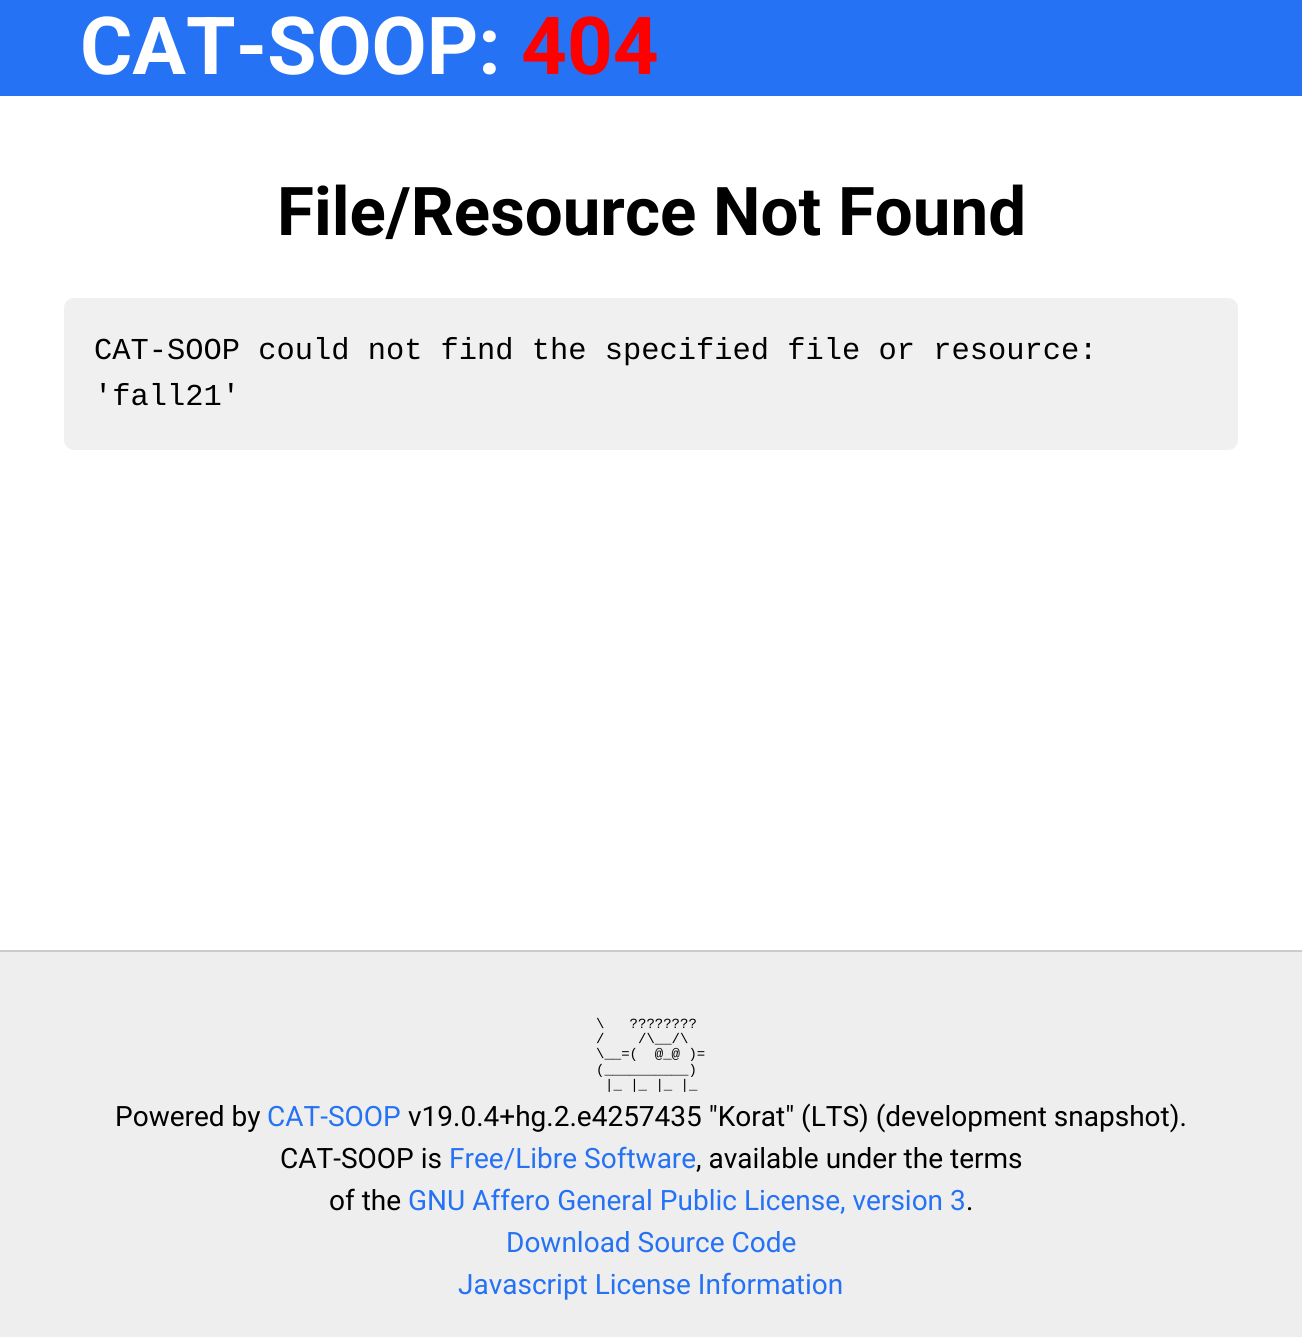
import math
import cairo

surface = cairo.ImageSurface(cairo.FORMAT_RGB24, 1302, 1337)
cr = cairo.Context(surface)
options = cairo.FontOptions()
options.set_hint_metrics(cairo.HINT_METRICS_OFF)
options.set_hint_style(cairo.HINT_STYLE_NONE)
cr.set_font_options(options)
cr.set_miter_limit(4)


def rgb(code):
    cr.set_source_rgb(*(v / 255 for v in bytes.fromhex(code[-6:])))


def rrect(x, y, w, h, r):
    cr.new_sub_path()
    for i, (u, v) in enumerate([(x + w - r, y + h - r), (x + r, y + h - r), (x + r, y + r), (x + w - r, y + r)]):
        cr.arc(u, v, r, i * math.pi / 2, (i + 1) * math.pi / 2)
    cr.close_path()


rgb("#ffffff")
cr.paint()
rgb("#2572f5")
cr.rectangle(0, 0, 1302, 96)
cr.fill()
rgb("#f0f0f0")
rrect(64, 298, 1174, 152, 10)
cr.fill()
rgb("#eeeeee")
cr.rectangle(0, 952, 1302, 385)
cr.fill()
rgb("#cccccc")
cr.rectangle(0, 950, 1302, 2)
cr.fill()
cr.select_font_face("Roboto", cairo.FONT_SLANT_NORMAL, cairo.FONT_WEIGHT_BOLD)
cr.set_font_size(80)
rgb("#ffffff")
cr.move_to(80, 74)
cr.show_text("CAT-SOOP:")
rgb("#ff0000")
cr.move_to(521, 74)
cr.show_text("404")
cr.set_font_size(67.25)
rgb("#000000")
cr.move_to(277, 235)
cr.show_text("File/Resource Not Found")
cr.select_font_face("Liberation Mono")
cr.set_font_size(30.4)
cr.move_to(94, 359)
cr.show_text("CAT-SOOP could not find the specified file or resource:")
cr.move_to(94, 405)
cr.show_text("'fall21'")
cr.set_font_size(14)
for x, y, s in [
    (596, 1028, "\\   ????????"),
    (596, 1043, "/    /\\__/\\"),
    (596, 1058, "\\__=(  @_@ )="),
    (596, 1074, "(__________)"),
    (605, 1089, "|_ |_ |_ |_"),
]:
    cr.move_to(x, y)
    cr.show_text(s)
cr.select_font_face("Roboto")
cr.set_font_size(28)
cr.move_to(115, 1126)
cr.show_text("Powered by")
rgb("#2572f5")
cr.move_to(267, 1126)
cr.show_text("CAT-SOOP")
rgb("#000000")
cr.move_to(408, 1126)
cr.show_text("v19.0.4+hg.2.e4257435 \"Korat\" (LTS) (development snapshot).")
cr.move_to(280, 1168)
cr.show_text("CAT-SOOP is")
rgb("#2572f5")
cr.move_to(449, 1168)
cr.show_text("Free/Libre Software")
rgb("#000000")
cr.move_to(696, 1168)
cr.show_text(", available under the terms")
cr.move_to(329, 1210)
cr.show_text("of the")
rgb("#2572f5")
cr.move_to(408, 1210)
cr.show_text("GNU Affero General Public License, version 3")
rgb("#000000")
cr.move_to(966, 1210)
cr.show_text(".")
rgb("#2572f5")
cr.move_to(506, 1252)
cr.show_text("Download Source Code")
cr.move_to(458, 1294)
cr.show_text("Javascript License Information")
surface.write_to_png("page.png")
